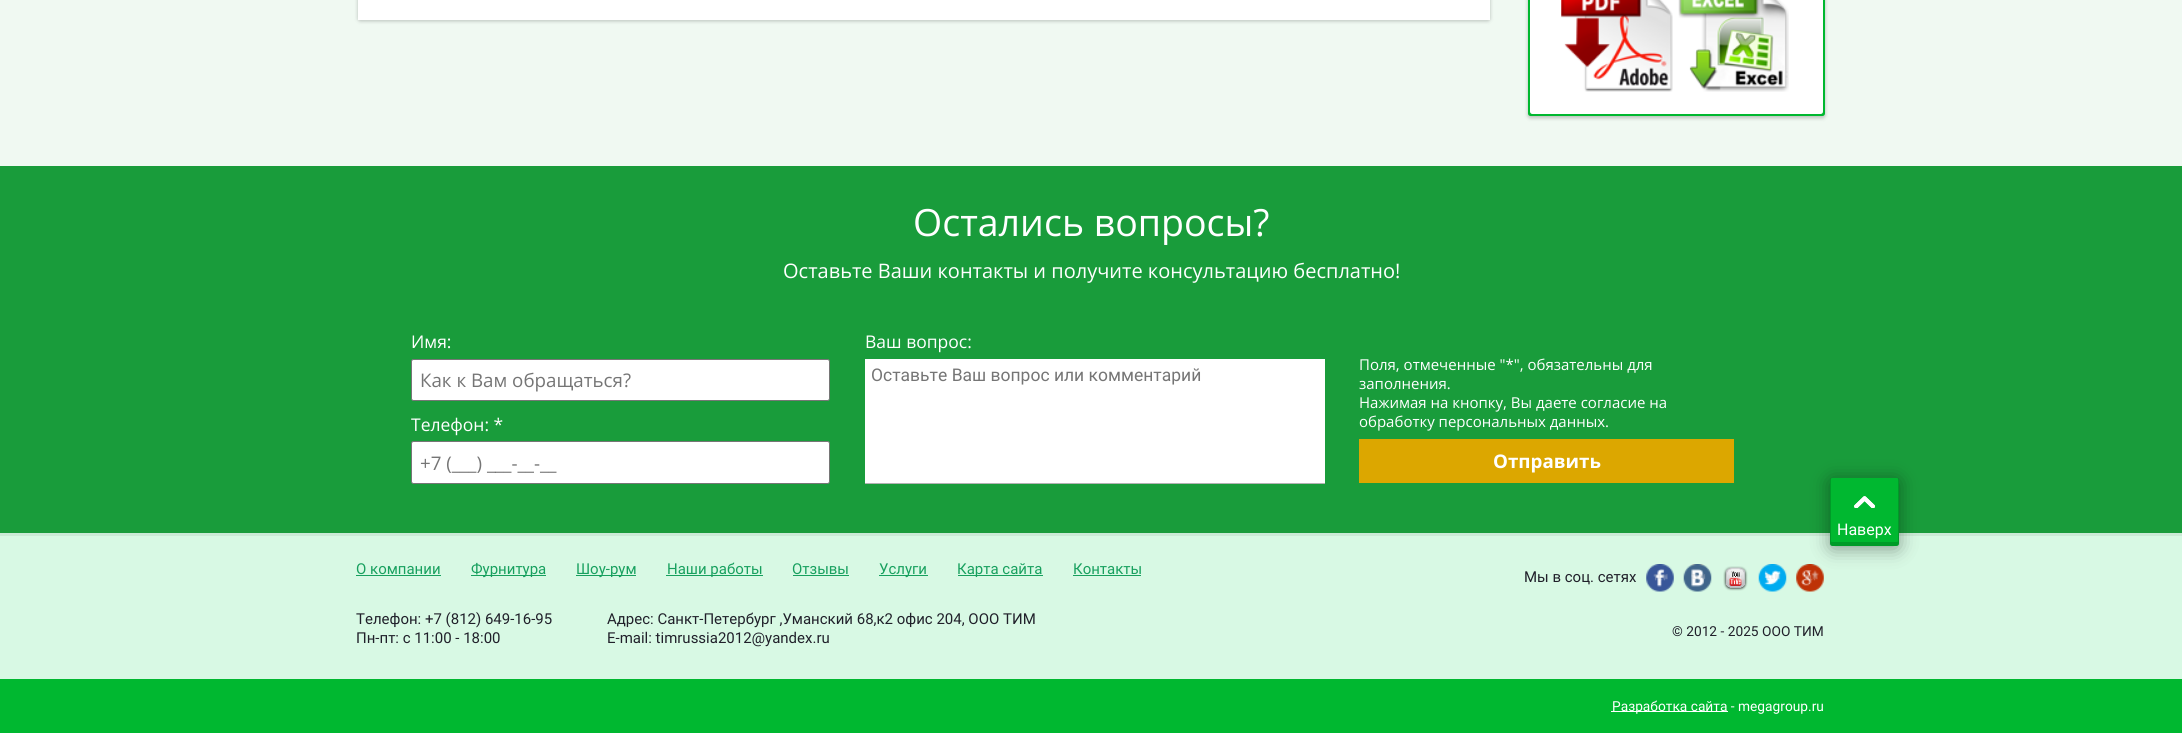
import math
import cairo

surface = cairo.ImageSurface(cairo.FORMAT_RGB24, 2182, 733)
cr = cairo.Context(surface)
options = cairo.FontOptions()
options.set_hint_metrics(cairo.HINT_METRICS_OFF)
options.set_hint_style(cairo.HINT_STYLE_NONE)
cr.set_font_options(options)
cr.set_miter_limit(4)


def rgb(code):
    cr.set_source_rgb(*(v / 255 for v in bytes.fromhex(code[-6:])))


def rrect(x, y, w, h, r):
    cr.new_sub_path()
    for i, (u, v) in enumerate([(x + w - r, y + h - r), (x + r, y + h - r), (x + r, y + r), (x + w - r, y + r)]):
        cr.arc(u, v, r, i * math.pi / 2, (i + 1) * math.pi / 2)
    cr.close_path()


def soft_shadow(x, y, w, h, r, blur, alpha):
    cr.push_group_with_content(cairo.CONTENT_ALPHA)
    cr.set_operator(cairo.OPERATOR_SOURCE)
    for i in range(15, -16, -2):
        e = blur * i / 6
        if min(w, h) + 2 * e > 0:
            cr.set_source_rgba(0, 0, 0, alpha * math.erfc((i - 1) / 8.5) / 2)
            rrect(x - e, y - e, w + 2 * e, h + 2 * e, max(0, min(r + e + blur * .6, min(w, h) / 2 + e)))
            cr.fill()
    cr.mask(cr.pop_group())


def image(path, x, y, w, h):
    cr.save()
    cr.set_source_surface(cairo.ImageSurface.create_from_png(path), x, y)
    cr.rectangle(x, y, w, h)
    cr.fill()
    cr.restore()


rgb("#f0f9f2")
cr.paint()
rgb("#000000")
soft_shadow(358, -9, 1132, 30, 2.5, 2, 0.24)
rgb("#ffffff")
cr.rectangle(358, 0, 1132, 20)
cr.fill()
rgb("#000000")
soft_shadow(1528, -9, 297, 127, 2.5, 2, 0.24)
rgb("#00b830")
rrect(1528, -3, 297, 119, 2.5)
cr.fill()
rgb("#ffffff")
cr.new_path()
cr.move_to(1530, -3)
cr.line_to(1823, -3)
cr.line_to(1823, 111.5)
cr.curve_to(1823, 113, 1822, 114, 1820.5, 114)
cr.line_to(1532.5, 114)
cr.curve_to(1531, 114, 1530, 113, 1530, 111.5)
cr.close_path()
cr.fill()
image("img/1.png", 1561, 0, 112, 92)
image("img/2.png", 1678, 0, 111, 92)
rgb("#199c3b")
cr.rectangle(0, 166, 2182, 367)
cr.fill()
rgb("#ffffff")
rrect(411.5, 359.5, 418, 41, 2)
cr.fill_preserve()
rgb("#767676")
cr.set_line_width(1)
cr.stroke()
rgb("#ffffff")
rrect(411.5, 441.5, 418, 42, 2)
cr.fill_preserve()
rgb("#767676")
cr.stroke()
for x, y, w, h, color in [
    (865, 359, 460, 124, "#ffffff"),
    (865, 483, 460, 1, "#b2b2b2"),
    (1359, 439, 375, 44, "#dca700"),
    (0, 536, 2182, 143, "#d8f9e4"),
    (0, 533, 2182, 3, "#cbead6"),
    (356, 575, 85, 1, "#17a05e"),
    (471, 575, 75, 1, "#17a05e"),
    (576, 575, 60, 1, "#17a05e"),
    (666, 575, 97, 1, "#17a05e"),
    (793, 575, 56, 1, "#17a05e"),
    (879, 575, 49, 1, "#17a05e"),
    (958, 575, 85, 1, "#17a05e"),
    (1073, 575, 68, 1, "#17a05e"),
]:
    rgb(color)
    cr.rectangle(x, y, w, h)
    cr.fill()
image("img/3.png", 1646, 564, 28, 28)
image("img/4.png", 1683, 564, 29, 28)
image("img/5.png", 1723, 566, 25, 25)
image("img/6.png", 1758, 564, 29, 28)
image("img/7.png", 1796, 564, 28, 28)
rgb("#00b830")
cr.rectangle(0, 679, 2182, 54)
cr.fill()
rgb("#ffffff")
cr.rectangle(1611, 711, 117, 1)
cr.fill()
rgb("#000000")
soft_shadow(1830, 480, 69, 69, 2.5, 9.5, 0.38)
rgb("#00b830")
rrect(1830, 478, 69, 68, 2.5)
cr.fill()
cr.set_source_rgba(0, 0, 0, 0.16)
cr.new_path()
cr.move_to(1831, 478)
cr.curve_to(1830, 479, 1830, 480, 1830, 480)
cr.line_to(1830, 544)
cr.curve_to(1830, 545, 1831, 546, 1832, 546)
cr.line_to(1896, 546)
cr.curve_to(1898, 546, 1899, 545, 1899, 544)
cr.line_to(1899, 480)
cr.curve_to(1899, 480, 1899, 479, 1898, 478)
cr.line_to(1898, 541)
cr.curve_to(1898, 542, 1897, 542, 1896, 542)
cr.line_to(1832, 542)
cr.curve_to(1832, 542, 1831, 542, 1831, 541)
cr.close_path()
cr.fill()
image("img/8.png", 1854, 496, 21, 12)
image("img/9.png", 1854, 496, 21, 12)
cr.select_font_face("Open Sans")
cr.set_font_size(37.5)
rgb("#ffffff")
cr.move_to(913, 236)
cr.show_text("Остались вопросы?")
cr.set_font_size(20)
cr.move_to(783, 278)
cr.show_text("Оставьте Ваши контакты и получите консультацию бесплатно!")
cr.set_font_size(17.5)
cr.move_to(411, 348)
cr.show_text("Имя:")
cr.set_font_size(18.75)
rgb("#757575")
cr.move_to(420, 387)
cr.show_text("Как к Вам обращаться?")
cr.set_font_size(17.5)
rgb("#ffffff")
cr.move_to(411, 431)
cr.show_text("Телефон: *")
cr.set_font_size(18.75)
rgb("#757575")
cr.move_to(420, 470)
cr.show_text("+7 (___) ___-__-__")
cr.set_font_size(17.5)
rgb("#ffffff")
cr.move_to(865, 348)
cr.show_text("Ваш вопрос:")
cr.select_font_face("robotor")
rgb("#757575")
cr.move_to(871, 381)
cr.show_text("Оставьте Ваш вопрос или комментарий")
cr.select_font_face("Open Sans")
cr.set_font_size(15)
rgb("#ffffff")
for x, y, s in [
    (1359, 370, "Поля, отмеченные \"*\", обязательны для"),
    (1359, 389, "заполнения."),
    (1359, 408, "Нажимая на кнопку, Вы даете согласие на"),
    (1359, 427, "обработку персональных данных."),
]:
    cr.move_to(x, y)
    cr.show_text(s)
cr.select_font_face("Open Sans", cairo.FONT_SLANT_NORMAL, cairo.FONT_WEIGHT_BOLD)
cr.set_font_size(18.75)
cr.move_to(1493, 468)
cr.show_text("Отправить")
cr.select_font_face("robotor")
cr.set_font_size(15)
rgb("#17a05e")
for x, y, s in [
    (356, 574, "О компании"),
    (471, 574, "Фурнитура"),
    (576, 574, "Шоу-рум"),
    (667, 574, "Наши работы"),
    (792, 574, "Отзывы"),
    (879, 574, "Услуги"),
    (957, 574, "Карта сайта"),
    (1073, 574, "Контакты"),
]:
    cr.move_to(x, y)
    cr.show_text(s)
rgb("#20202a")
cr.move_to(1524, 582)
cr.show_text("Мы в соц. сетях")
cr.set_font_size(13.75)
cr.move_to(1672, 636)
cr.show_text("© 2012 - 2025 ООО ТИМ")
cr.set_font_size(15)
for x, y, s in [
    (356, 624, "Телефон: +7 (812) 649-16-95"),
    (356, 643, "Пн-пт: с 11:00 - 18:00"),
    (607, 624, "Адрес: Санкт-Петербург ,Уманский 68,к2 офис 204, ООО ТИМ"),
    (607, 643, "Е-mail: timrussia2012@yandex.ru"),
]:
    cr.move_to(x, y)
    cr.show_text(s)
cr.set_font_size(13.75)
rgb("#ffffff")
cr.move_to(1612, 711)
cr.show_text("Разработка сайта - megagroup.ru")
cr.set_font_size(16)
cr.move_to(1837, 535)
cr.show_text("Наверх")
surface.write_to_png("page.png")
